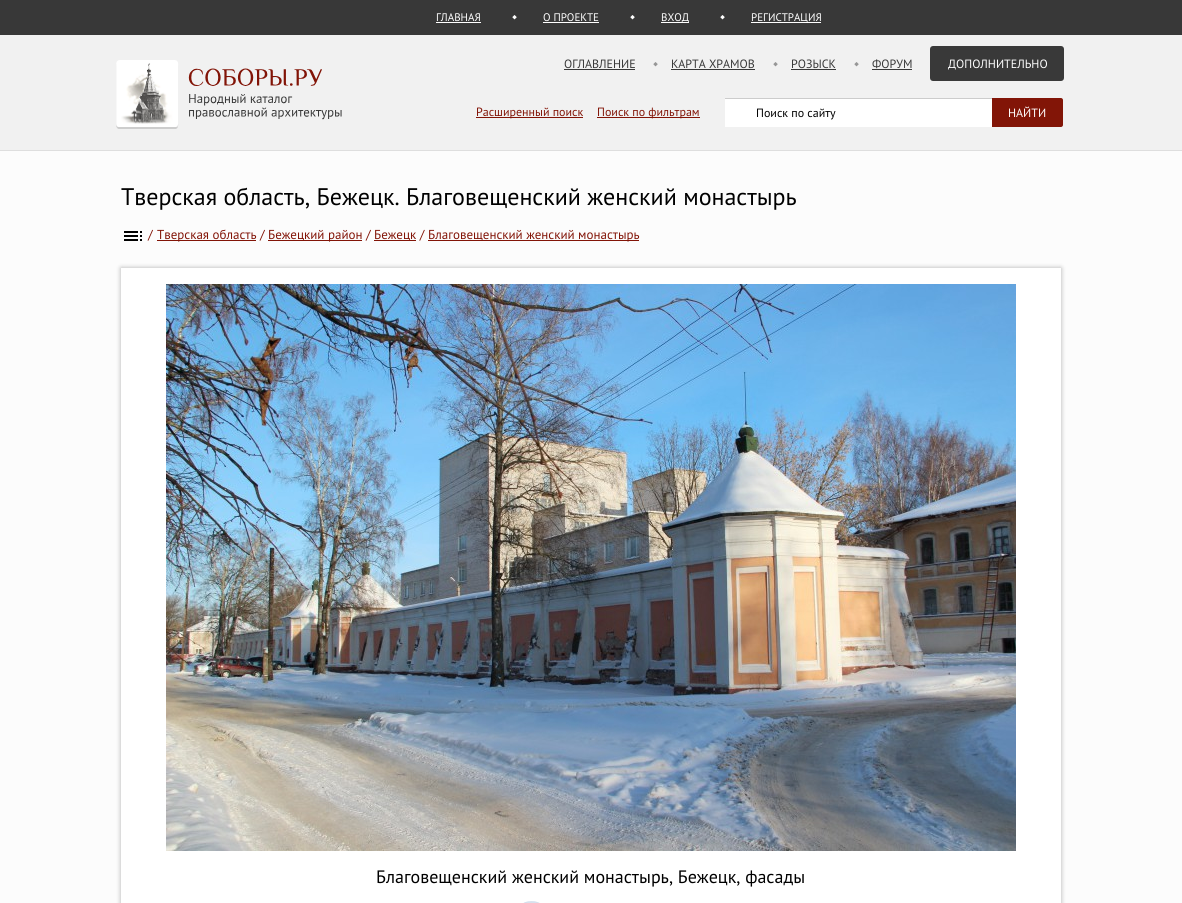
import math
import cairo

surface = cairo.ImageSurface(cairo.FORMAT_RGB24, 1182, 903)
cr = cairo.Context(surface)
options = cairo.FontOptions()
options.set_hint_metrics(cairo.HINT_METRICS_OFF)
options.set_hint_style(cairo.HINT_STYLE_NONE)
cr.set_font_options(options)
cr.set_miter_limit(4)


def rgb(code):
    cr.set_source_rgb(*(v / 255 for v in bytes.fromhex(code[-6:])))


def rrect(x, y, w, h, r):
    cr.new_sub_path()
    for i, (u, v) in enumerate([(x + w - r, y + h - r), (x + r, y + h - r), (x + r, y + r), (x + w - r, y + r)]):
        cr.arc(u, v, r, i * math.pi / 2, (i + 1) * math.pi / 2)
    cr.close_path()


def soft_shadow(x, y, w, h, r, blur, alpha):
    cr.push_group_with_content(cairo.CONTENT_ALPHA)
    cr.set_operator(cairo.OPERATOR_SOURCE)
    for i in range(15, -16, -2):
        e = blur * i / 6
        if min(w, h) + 2 * e > 0:
            cr.set_source_rgba(0, 0, 0, alpha * math.erfc((i - 1) / 8.5) / 2)
            rrect(x - e, y - e, w + 2 * e, h + 2 * e, max(0, min(r + e + blur * .6, min(w, h) / 2 + e)))
            cr.fill()
    cr.mask(cr.pop_group())


def image(path, x, y, w, h):
    cr.save()
    cr.set_source_surface(cairo.ImageSurface.create_from_png(path), x, y)
    cr.rectangle(x, y, w, h)
    cr.fill()
    cr.restore()


rgb("#fcfcfc")
cr.paint()
rgb("#383838")
cr.rectangle(0, 0, 1182, 35)
cr.fill()
rgb("#ffffff")
cr.rectangle(436, 22, 45, 1)
cr.fill()
image("img/1.png", 512, 15, 5, 5)
cr.rectangle(543, 22, 56, 1)
cr.fill()
image("img/1.png", 630, 15, 5, 5)
cr.rectangle(661, 22, 28, 1)
cr.fill()
image("img/1.png", 720, 15, 5, 5)
for x, y, w, h, color in [
    (751, 22, 70, 1, "#ffffff"),
    (0, 35, 1182, 115, "#f1f1f1"),
    (0, 150, 1182, 1, "#dedede"),
]:
    rgb(color)
    cr.rectangle(x, y, w, h)
    cr.fill()
image("img/2.png", 116, 60, 226, 69)
rgb("#383838")
cr.rectangle(564, 69, 71, 1)
cr.fill()
image("img/3.png", 653, 62, 5, 5)
cr.rectangle(671, 69, 84, 1)
cr.fill()
image("img/3.png", 773, 62, 5, 5)
cr.rectangle(791, 69, 45, 1)
cr.fill()
image("img/3.png", 854, 62, 5, 5)
cr.rectangle(872, 69, 40, 1)
cr.fill()
rgb("#393939")
rrect(930, 46, 134, 35, 3)
cr.fill()
for x, y, w, h, color in [
    (476, 117, 107, 1, "#821407"),
    (597, 117, 103, 1, "#821407"),
    (725, 99, 267, 28, "#ffffff"),
    (725, 98, 267, 1, "#cccccc"),
]:
    rgb(color)
    cr.rectangle(x, y, w, h)
    cr.fill()
rgb("#821507")
cr.new_path()
cr.move_to(992, 98)
cr.line_to(1061, 98)
cr.curve_to(1062, 98, 1063, 99, 1063, 100)
cr.line_to(1063, 125)
cr.curve_to(1063, 126, 1062, 127, 1061, 127)
cr.line_to(992, 127)
cr.close_path()
cr.fill()
image("img/4.png", 124, 231, 18, 10)
for x, y, w, h, color in [
    (157, 240, 99, 1, "#821407"),
    (268, 240, 94, 1, "#821407"),
    (374, 240, 42, 1, "#821407"),
    (428, 240, 211, 1, "#821407"),
]:
    rgb(color)
    cr.rectangle(x, y, w, h)
    cr.fill()
rgb("#000000")
soft_shadow(121, 268, 940, 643, 0, 2.5, 0.3)
rgb("#ffffff")
cr.rectangle(121, 268, 940, 635)
cr.fill()
image("img/5.png", 166, 284, 850, 567)
image("img/6.png", 523, 901, 17, 2)
cr.select_font_face("PT Sans")
cr.set_font_size(11)
for x, y, s in [
    (436, 21, "ГЛАВНАЯ"),
    (543, 21, "О ПРОЕКТЕ"),
    (661, 21, "ВХОД"),
    (751, 21, "РЕГИСТРАЦИЯ"),
]:
    cr.move_to(x, y)
    cr.show_text(s)
cr.set_font_size(12)
rgb("#383838")
for x, y, s in [
    (564, 68, "ОГЛАВЛЕНИЕ"),
    (671, 68, "КАРТА ХРАМОВ"),
    (791, 68, "РОЗЫСК"),
    (872, 68, "ФОРУМ"),
]:
    cr.move_to(x, y)
    cr.show_text(s)
rgb("#ffffff")
cr.move_to(948, 68)
cr.show_text("ДОПОЛНИТЕЛЬНО")
rgb("#821407")
cr.move_to(476, 116)
cr.show_text("Расширенный поиск")
cr.move_to(597, 116)
cr.show_text("Поиск по фильтрам")
rgb("#000000")
cr.move_to(756, 117)
cr.show_text("Поиск по сайту")
rgb("#ffffff")
cr.move_to(1008, 117)
cr.show_text("НАЙТИ")
cr.set_font_size(24)
rgb("#000000")
cr.move_to(121, 205)
cr.show_text("Тверская область, Бежецк. Благовещенский женский монастырь")
cr.set_font_size(13)
rgb("#821407")
for x, y, s in [
    (148, 239, "/"),
    (157, 239, "Тверская область /"),
    (268, 239, "Бежецкий район /"),
    (374, 239, "Бежецк /"),
    (428, 239, "Благовещенский женский монастырь"),
]:
    cr.move_to(x, y)
    cr.show_text(s)
cr.set_font_size(18)
rgb("#000000")
cr.move_to(376, 883)
cr.show_text("Благовещенский женский монастырь, Бежецк, фасады")
surface.write_to_png("page.png")
